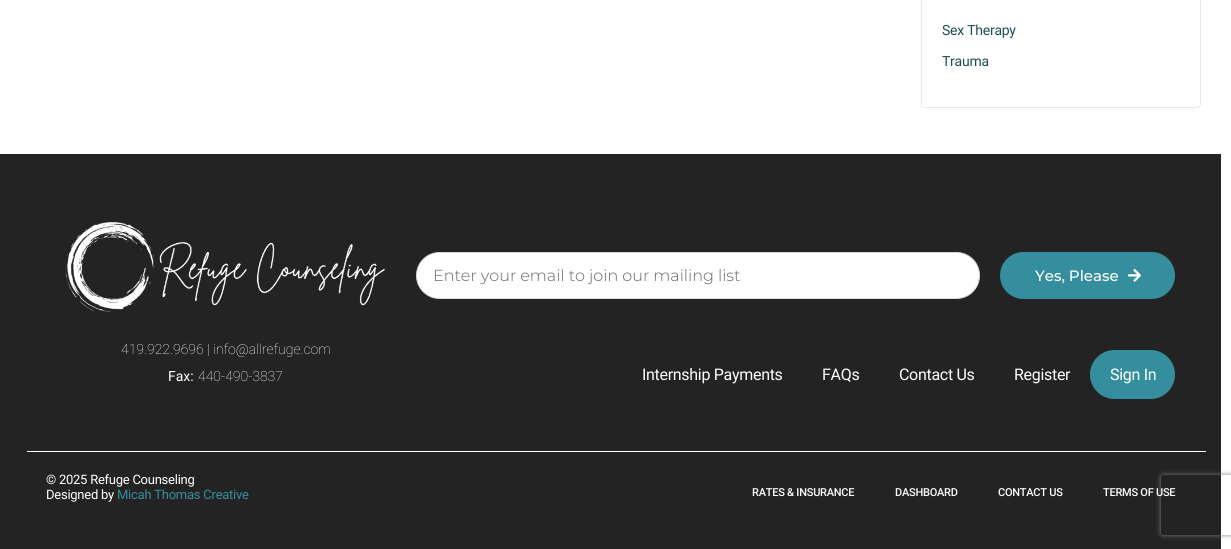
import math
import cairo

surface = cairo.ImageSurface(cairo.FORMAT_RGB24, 1231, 549)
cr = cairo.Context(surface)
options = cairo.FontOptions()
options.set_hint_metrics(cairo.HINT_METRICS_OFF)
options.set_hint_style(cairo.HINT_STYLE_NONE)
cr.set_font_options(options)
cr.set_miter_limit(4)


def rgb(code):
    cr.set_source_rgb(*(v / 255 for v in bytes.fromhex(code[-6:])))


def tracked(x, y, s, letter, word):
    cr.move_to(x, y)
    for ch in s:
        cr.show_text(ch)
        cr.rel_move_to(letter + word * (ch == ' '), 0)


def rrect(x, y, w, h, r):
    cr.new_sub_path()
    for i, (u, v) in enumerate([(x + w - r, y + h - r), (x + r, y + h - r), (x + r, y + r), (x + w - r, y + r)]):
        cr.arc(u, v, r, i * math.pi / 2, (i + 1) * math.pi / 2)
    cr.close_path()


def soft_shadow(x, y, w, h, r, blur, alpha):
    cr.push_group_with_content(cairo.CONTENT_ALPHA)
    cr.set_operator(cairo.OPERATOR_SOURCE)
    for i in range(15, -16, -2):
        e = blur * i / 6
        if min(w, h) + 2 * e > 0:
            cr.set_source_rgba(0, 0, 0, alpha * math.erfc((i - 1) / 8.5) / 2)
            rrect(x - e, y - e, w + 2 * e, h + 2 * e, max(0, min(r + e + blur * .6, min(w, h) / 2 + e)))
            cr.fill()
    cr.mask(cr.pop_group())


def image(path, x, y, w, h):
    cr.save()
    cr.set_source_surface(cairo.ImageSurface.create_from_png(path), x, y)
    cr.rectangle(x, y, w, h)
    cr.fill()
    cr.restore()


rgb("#ffffff")
cr.paint()
rrect(921.5, -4.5, 279, 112, 3.5)
rgb("#e7e9ec")
cr.set_line_width(1)
cr.stroke()
rgb("#232323")
cr.rectangle(0, 154, 1221, 395)
cr.fill()
image("img/1.png", 65, 222, 320, 91)
rgb("#ffffff")
rrect(416.5, 252.5, 563, 46, 23)
cr.fill_preserve()
rgb("#d8d8d8")
cr.stroke()
rgb("#358e9d")
rrect(1000, 252, 175, 47, 23.5)
cr.fill()
image("img/2.png", 1128, 269, 14, 13)
rrect(1090, 350, 85, 49, 24.5)
cr.fill()
rgb("#ffffff")
cr.rectangle(27, 451, 1179, 1)
cr.fill()
cr.save()
cr.set_fill_rule(cairo.FILL_RULE_EVEN_ODD)
cr.new_path()
cr.move_to(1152, 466)
cr.line_to(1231, 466)
cr.line_to(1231, 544)
cr.line_to(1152, 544)
cr.close_path()
cr.move_to(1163, 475)
cr.line_to(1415, 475)
cr.curve_to(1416, 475, 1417, 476, 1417, 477)
cr.line_to(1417, 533)
cr.curve_to(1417, 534, 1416, 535, 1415, 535)
cr.line_to(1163, 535)
cr.curve_to(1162, 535, 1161, 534, 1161, 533)
cr.line_to(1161, 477)
cr.curve_to(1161, 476, 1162, 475, 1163, 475)
cr.close_path()
cr.clip()
rgb("#808080")
soft_shadow(1161, 475, 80, 60, 2, 2.5, 1)
cr.restore()
cr.select_font_face("Roboto")
cr.set_font_size(14)
rgb("#1d4e56")
tracked(942, 35, "Sex Therapy", -0.25, 0)
tracked(942, 66, "Trauma", -0.25, 0)
cr.select_font_face("Roboto Thin")
rgb("#ffffff")
cr.move_to(121, 354)
cr.show_text("419.922.9696 | info@allrefuge.com")
cr.select_font_face("Roboto")
cr.move_to(168, 381)
cr.show_text("Fax:")
cr.select_font_face("Roboto Thin")
cr.move_to(198, 381)
cr.show_text("440-490-3837")
cr.select_font_face("Montserrat Light")
cr.set_font_size(16)
rgb("#666666")
cr.move_to(433, 281)
cr.show_text("Enter your email to join our mailing list")
cr.select_font_face("Montserrat Medium")
cr.set_font_size(15)
rgb("#ffffff")
cr.move_to(1035, 281)
cr.show_text("Yes, Please")
cr.select_font_face("Roboto")
cr.set_font_size(16)
for x, y, s in [
    (642, 380, "Internship Payments"),
    (822, 380, "FAQs"),
    (899, 380, "Contact Us"),
    (1014, 380, "Register"),
    (1110, 380, "Sign In"),
]:
    tracked(x, y, s, -0.3, 0)
cr.set_font_size(13)
tracked(46, 484, "© 2025 Refuge Counseling", -0.25, 0)
tracked(46, 499, "Designed by", -0.25, 0)
rgb("#358e9d")
tracked(117, 499, "Micah Thomas Creative", -0.25, 0)
cr.select_font_face("Roboto Medium")
cr.set_font_size(11)
rgb("#ffffff")
for x, y, s in [
    (752, 496, "RATES & INSURANCE"),
    (895, 496, "DASHBOARD"),
    (998, 496, "CONTACT US"),
    (1103, 496, "TERMS OF USE"),
]:
    tracked(x, y, s, -0.25, 0)
surface.write_to_png("page.png")
